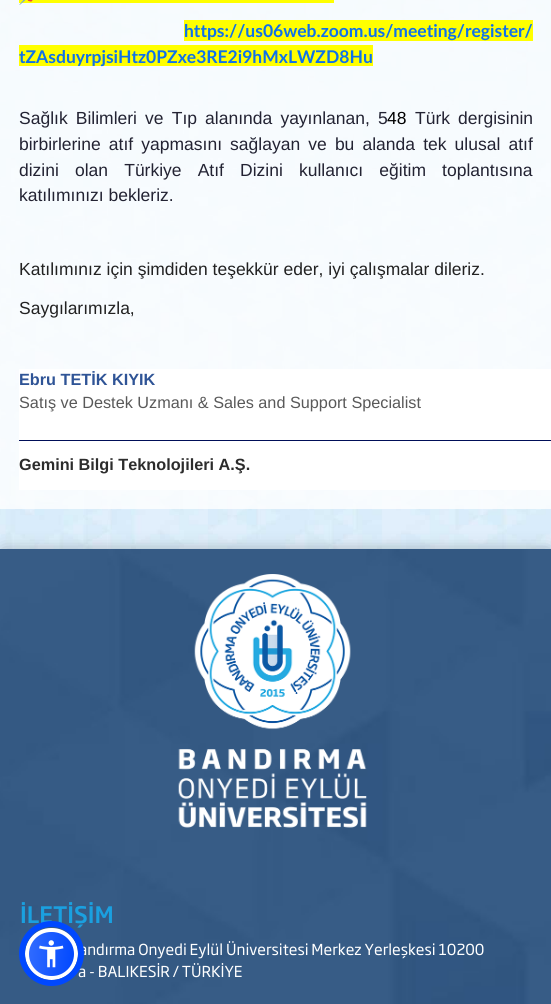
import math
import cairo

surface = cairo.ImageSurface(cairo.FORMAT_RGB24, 551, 1004)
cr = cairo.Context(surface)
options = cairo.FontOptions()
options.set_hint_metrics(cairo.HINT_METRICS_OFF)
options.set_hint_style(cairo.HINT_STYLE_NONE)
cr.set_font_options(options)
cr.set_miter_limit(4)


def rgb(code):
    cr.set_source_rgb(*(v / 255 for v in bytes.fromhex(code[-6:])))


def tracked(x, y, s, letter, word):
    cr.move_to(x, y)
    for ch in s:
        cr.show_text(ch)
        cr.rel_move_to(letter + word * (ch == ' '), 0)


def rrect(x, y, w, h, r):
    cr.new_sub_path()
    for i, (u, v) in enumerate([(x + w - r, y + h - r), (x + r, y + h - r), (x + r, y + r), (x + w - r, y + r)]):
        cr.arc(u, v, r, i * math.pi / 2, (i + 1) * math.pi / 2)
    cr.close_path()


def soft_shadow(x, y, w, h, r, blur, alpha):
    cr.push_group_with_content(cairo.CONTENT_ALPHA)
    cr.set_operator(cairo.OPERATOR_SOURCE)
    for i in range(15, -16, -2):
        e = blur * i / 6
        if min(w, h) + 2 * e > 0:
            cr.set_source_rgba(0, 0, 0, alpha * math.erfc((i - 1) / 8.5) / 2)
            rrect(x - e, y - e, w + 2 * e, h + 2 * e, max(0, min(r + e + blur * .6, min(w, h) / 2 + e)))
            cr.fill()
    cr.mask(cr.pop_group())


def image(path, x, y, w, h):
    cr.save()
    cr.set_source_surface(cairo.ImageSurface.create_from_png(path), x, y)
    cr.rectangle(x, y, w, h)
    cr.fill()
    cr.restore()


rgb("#ffffff")
cr.paint()
image("img/1.png", 0, 0, 551, 549)
rgb("#ffff00")
cr.rectangle(19, 0, 315, 3)
cr.fill()
image("img/2.png", 19, 0, 14, 5)
for x, y, w, h, color in [
    (184, 20, 349, 21, "#ffff00"),
    (19, 45, 354, 21, "#ffff00"),
    (19, 369, 532, 121, "#ffffff"),
    (19, 440, 532, 1, "#000e58"),
]:
    rgb(color)
    cr.rectangle(x, y, w, h)
    cr.fill()
rgb("#000000")
soft_shadow(4, 553, 544, 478, 0, 9, 0.4)
image("img/3.png", 0, 549, 551, 455)
image("img/4.png", 178, 574, 189, 254)
cr.save()
rrect(25, 928, 53, 52, 26)
cr.clip()
gradient = cairo.LinearGradient(27, 951, 76, 956)
gradient.add_color_stop_rgba(0, 0.196, 0.424, 1, 1)
gradient.add_color_stop_rgba(1, 0, 0.282, 1, 1)
cr.set_source(gradient)
cr.rectangle(29, 931, 45, 45)
cr.fill()
cr.restore()
rrect(27, 930, 49, 48, 24)
rgb("#ffffff")
cr.set_line_width(4)
cr.stroke()
cr.select_font_face("Lato", cairo.FONT_SLANT_NORMAL, cairo.FONT_WEIGHT_BOLD)
cr.set_font_size(17.5)
rgb("#0e71eb")
cr.move_to(184, 37)
cr.show_text("https://us06web.zoom.us/meeting/register/")
cr.move_to(19, 63)
cr.show_text("tZAsduyrpjsiHtz0PZxe3RE2i9hMxLWZD8Hu")
cr.select_font_face("Liberation Sans")
rgb("#232333")
tracked(19, 124, "Sağlık Bilimleri ve Tıp alanında yayınlanan, 5", 0, 3.25)
rgb("#000000")
cr.move_to(387, 124)
cr.show_text("48")
rgb("#232333")
tracked(415, 124, "Türk dergisinin", 0, 3.25)
tracked(19, 150, "birbirlerine atıf yapmasını sağlayan ve bu alanda tek ulusal atıf", 0, 3.25)
tracked(19, 176, "dizini olan Türkiye Atıf Dizini kullanıcı eğitim toplantısına", 0, 11.25)
cr.move_to(19, 201)
cr.show_text("katılımınızı bekleriz.")
rgb("#222222")
cr.move_to(19, 275)
cr.show_text("Katılımınız için şimdiden teşekkür eder, iyi çalışmalar dileriz.")
cr.move_to(19, 314)
cr.show_text("Saygılarımızla,")
cr.select_font_face("Liberation Sans", cairo.FONT_SLANT_NORMAL, cairo.FONT_WEIGHT_BOLD)
cr.set_font_size(16.25)
rgb("#2f5496")
cr.move_to(19, 385)
cr.show_text("Ebru TETİK KIYIK")
cr.select_font_face("Liberation Sans")
rgb("#595959")
cr.move_to(19, 408)
cr.show_text("Satış ve Destek Uzmanı & Sales and Support Specialist")
cr.select_font_face("Liberation Sans", cairo.FONT_SLANT_NORMAL, cairo.FONT_WEIGHT_BOLD)
rgb("#2c2c2c")
cr.move_to(19, 470)
cr.show_text("Gemini Bilgi Teknolojileri A.Ş.")
cr.select_font_face("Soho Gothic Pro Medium")
cr.set_font_size(22.5)
rgb("#1aa0e0")
cr.move_to(20, 923)
cr.show_text("İLETİŞİM")
cr.select_font_face("Soho Gothic Pro")
cr.set_font_size(15)
rgb("#ffffff")
cr.move_to(79, 955)
cr.show_text("andırma Onyedi Eylül Üniversitesi Merkez Yerleşkesi 10200")
cr.move_to(78, 977)
cr.show_text("a - BALIKESİR / TÜRKİYE")
cr.new_path()
cr.arc(51.5, 953.5, 29.5, 0, 2 * math.pi)
rgb("#0048ff")
cr.set_line_width(6)
cr.stroke()
image("img/5.png", 39, 940, 25, 28)
surface.write_to_png("page.png")
